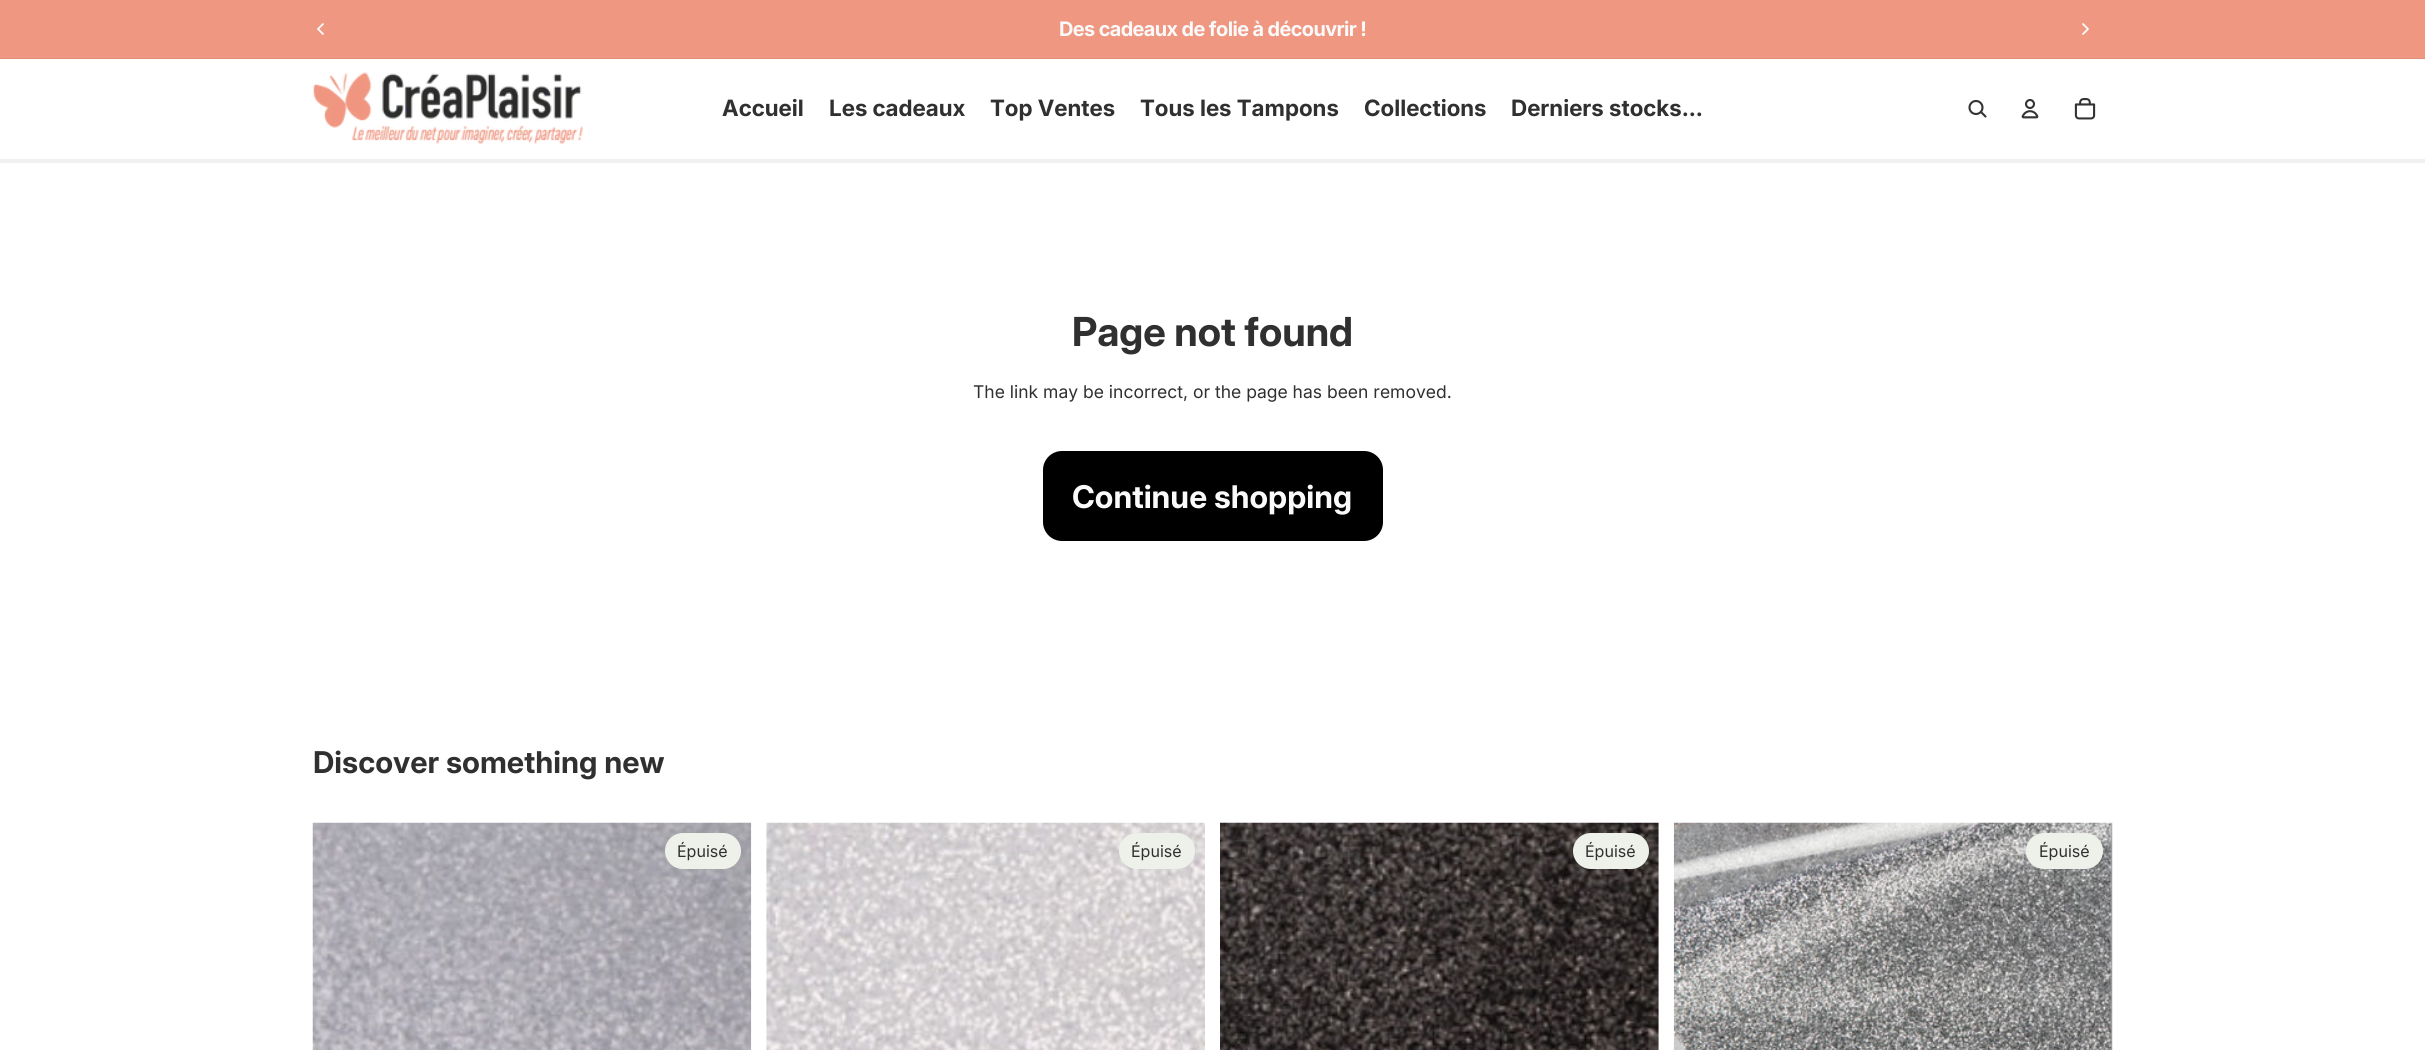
import math
import cairo

surface = cairo.ImageSurface(cairo.FORMAT_RGB24, 2425, 1050)
cr = cairo.Context(surface)
options = cairo.FontOptions()
options.set_hint_metrics(cairo.HINT_METRICS_OFF)
options.set_hint_style(cairo.HINT_STYLE_NONE)
cr.set_font_options(options)
cr.set_miter_limit(4)


def rgb(code):
    cr.set_source_rgb(*(v / 255 for v in bytes.fromhex(code[-6:])))


def tracked(x, y, s, letter, word):
    cr.move_to(x, y)
    for ch in s:
        cr.show_text(ch)
        cr.rel_move_to(letter + word * (ch == ' '), 0)


def rrect(x, y, w, h, r):
    cr.new_sub_path()
    for i, (u, v) in enumerate([(x + w - r, y + h - r), (x + r, y + h - r), (x + r, y + r), (x + w - r, y + r)]):
        cr.arc(u, v, r, i * math.pi / 2, (i + 1) * math.pi / 2)
    cr.close_path()


def image(path, x, y, w, h):
    cr.save()
    cr.set_source_surface(cairo.ImageSurface.create_from_png(path), x, y)
    cr.rectangle(x, y, w, h)
    cr.fill()
    cr.restore()


rgb("#ffffff")
cr.paint()
rgb("#ef9781")
cr.rectangle(0, 0, 2425, 58)
cr.fill()
rgb("#e18e79")
cr.rectangle(0, 58, 2425, 1)
cr.fill()
cr.new_path()
cr.move_to(323, 24)
cr.line_to(318, 29)
cr.line_to(323, 34)
rgb("#fafafa")
cr.set_line_width(1.8)
cr.set_line_cap(cairo.LINE_CAP_ROUND)
cr.set_line_join(cairo.LINE_JOIN_ROUND)
cr.stroke()
cr.new_path()
cr.move_to(2083, 24)
cr.line_to(2088, 29)
cr.line_to(2083, 34)
cr.stroke()
rgb("#f0f0f0")
cr.rectangle(0, 159, 2425, 4)
cr.fill()
image("img/1.png", 313, 72, 270, 72)
cr.arc(1976, 107.5, 6.5, 0, 2 * math.pi)
rgb("#333333")
cr.set_line_width(2.1)
cr.set_line_cap(cairo.LINE_CAP_BUTT)
cr.set_line_join(cairo.LINE_JOIN_MITER)
cr.stroke()
cr.new_path()
cr.move_to(1981, 112)
cr.line_to(1985.5, 116.5)
cr.set_line_cap(cairo.LINE_CAP_ROUND)
cr.set_line_join(cairo.LINE_JOIN_ROUND)
cr.stroke()
image("img/2.png", 2021, 99, 18, 20)
image("img/3.png", 2074, 98, 22, 22)
rgb("#000000")
rrect(1043, 451, 340, 90, 19)
cr.fill()
image("img/4.png", 312, 822, 440, 228)
rgb("#eef1ea")
rrect(665, 833, 76, 36, 18)
cr.fill()
image("img/5.png", 766, 822, 439, 228)
rrect(1119, 833, 76, 36, 18)
cr.fill()
image("img/6.png", 1220, 822, 439, 228)
rrect(1573, 833, 76, 36, 18)
cr.fill()
image("img/7.png", 1673, 822, 440, 228)
rrect(2026, 833, 77, 36, 18)
cr.fill()
cr.select_font_face("Inter", cairo.FONT_SLANT_NORMAL, cairo.FONT_WEIGHT_BOLD)
cr.set_font_size(20)
rgb("#fafafa")
tracked(1059, 36, "Des cadeaux de folie à découvrir !", -0.6, 0)
cr.select_font_face("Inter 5", cairo.FONT_SLANT_NORMAL, cairo.FONT_WEIGHT_BOLD)
cr.set_font_size(22.5)
rgb("#303030")
for x, y, s in [
    (722, 116, "Accueil"),
    (829, 116, "Les cadeaux"),
    (990, 116, "Top Ventes"),
    (1140, 116, "Tous les Tampons"),
    (1364, 116, "Collections"),
    (1511, 116, "Derniers stocks..."),
]:
    cr.move_to(x, y)
    cr.show_text(s)
cr.select_font_face("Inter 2", cairo.FONT_SLANT_NORMAL, cairo.FONT_WEIGHT_BOLD)
cr.set_font_size(40)
cr.move_to(1072, 346)
cr.show_text("Page not found")
cr.select_font_face("Inter")
cr.set_font_size(17.5)
cr.move_to(973, 398)
cr.show_text("The link may be incorrect, or the page has been removed.")
cr.select_font_face("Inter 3", cairo.FONT_SLANT_NORMAL, cairo.FONT_WEIGHT_BOLD)
cr.set_font_size(31.25)
rgb("#fafafa")
cr.move_to(1072, 508)
cr.show_text("Continue shopping")
cr.select_font_face("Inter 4", cairo.FONT_SLANT_NORMAL, cairo.FONT_WEIGHT_BOLD)
cr.set_font_size(30)
rgb("#303030")
cr.move_to(313, 773)
cr.show_text("Discover something new")
cr.select_font_face("Inter")
cr.set_font_size(16)
for x, y, s in [
    (677, 857, "Épuisé"),
    (1131, 857, "Épuisé"),
    (1585, 857, "Épuisé"),
    (2039, 857, "Épuisé"),
]:
    cr.move_to(x, y)
    cr.show_text(s)
surface.write_to_png("page.png")
